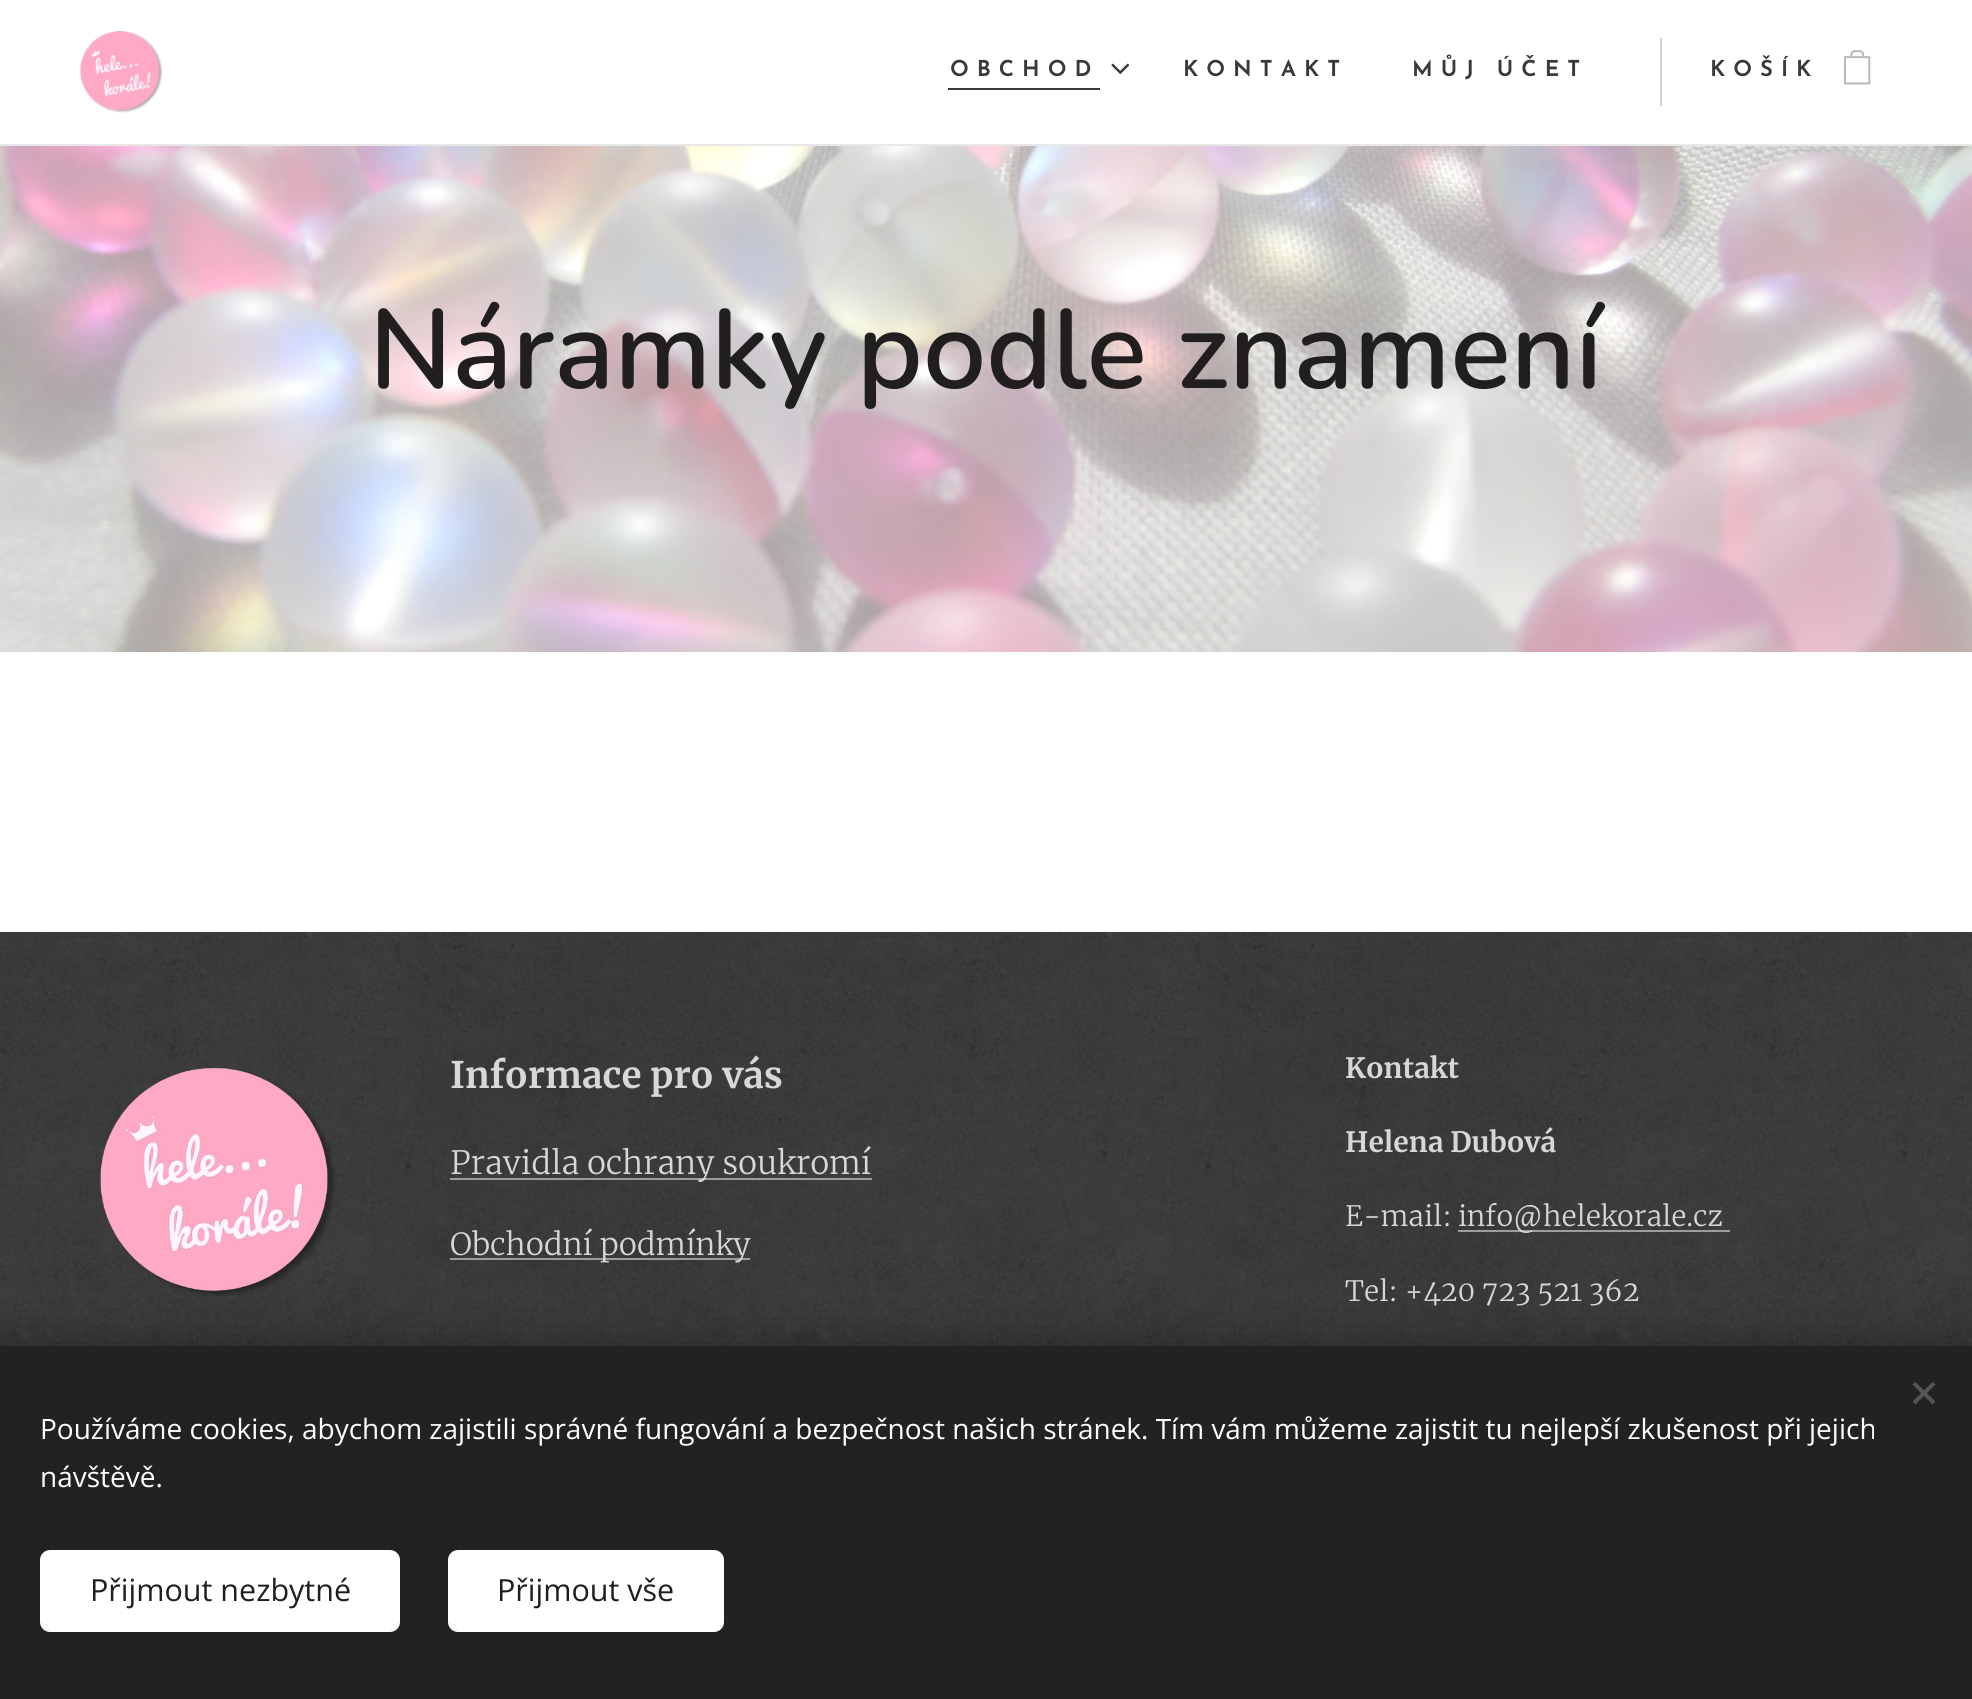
import math
import cairo

surface = cairo.ImageSurface(cairo.FORMAT_RGB24, 1972, 1699)
cr = cairo.Context(surface)
options = cairo.FontOptions()
options.set_hint_metrics(cairo.HINT_METRICS_OFF)
options.set_hint_style(cairo.HINT_STYLE_NONE)
cr.set_font_options(options)
cr.set_miter_limit(4)


def rgb(code):
    cr.set_source_rgb(*(v / 255 for v in bytes.fromhex(code[-6:])))


def tracked(x, y, s, letter, word):
    cr.move_to(x, y)
    for ch in s:
        cr.show_text(ch)
        cr.rel_move_to(letter + word * (ch == ' '), 0)


def rrect(x, y, w, h, r):
    cr.new_sub_path()
    for i, (u, v) in enumerate([(x + w - r, y + h - r), (x + r, y + h - r), (x + r, y + r), (x + w - r, y + r)]):
        cr.arc(u, v, r, i * math.pi / 2, (i + 1) * math.pi / 2)
    cr.close_path()


def soft_shadow(x, y, w, h, r, blur, alpha):
    cr.push_group_with_content(cairo.CONTENT_ALPHA)
    cr.set_operator(cairo.OPERATOR_SOURCE)
    for i in range(15, -16, -2):
        e = blur * i / 6
        if min(w, h) + 2 * e > 0:
            cr.set_source_rgba(0, 0, 0, alpha * math.erfc((i - 1) / 8.5) / 2)
            rrect(x - e, y - e, w + 2 * e, h + 2 * e, max(0, min(r + e + blur * .6, min(w, h) / 2 + e)))
            cr.fill()
    cr.mask(cr.pop_group())


def image(path, x, y, w, h):
    cr.save()
    cr.set_source_surface(cairo.ImageSurface.create_from_png(path), x, y)
    cr.rectangle(x, y, w, h)
    cr.fill()
    cr.restore()


rgb("#ffffff")
cr.paint()
rgb("#e8e8e8")
cr.rectangle(0, 144, 1972, 2)
cr.fill()
image("img/1.png", 80, 31, 83, 82)
rgb("#393939")
cr.rectangle(948, 88, 152, 2)
cr.fill()
image("img/2.png", 1111, 63, 19, 11)
rgb("#d1d1d1")
cr.rectangle(1660, 38, 2, 68)
cr.fill()
image("img/3.png", 1844, 50, 27, 35)
image("img/4.png", 0, 146, 1972, 506)
image("img/5.png", 0, 932, 1972, 414)
image("img/6.png", 100, 1067, 236, 229)
cr.set_source_rgba(1, 1, 1, 0.5)
cr.rectangle(450, 1178, 422, 2)
cr.fill()
cr.rectangle(450, 1258, 300, 2)
cr.fill()
cr.rectangle(1458, 1230, 272, 2)
cr.fill()
rgb("#000000")
soft_shadow(0, 1346, 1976, 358, 0, 25, 0.33)
rgb("#222222")
cr.rectangle(0, 1346, 1972, 353)
cr.fill()
rgb("#555555")
cr.new_path()
cr.move_to(1912.5, 1401.5)
cr.line_to(1932.5, 1382)
cr.line_to(1935.5, 1384.5)
cr.line_to(1915.5, 1404.5)
cr.close_path()
cr.fill()
cr.new_path()
cr.move_to(1915.5, 1382)
cr.line_to(1935.5, 1401.5)
cr.line_to(1932.5, 1404.5)
cr.line_to(1912.5, 1384.5)
cr.close_path()
cr.fill()
rgb("#ffffff")
rrect(40, 1550, 360, 82, 10)
cr.fill()
rrect(448, 1550, 276, 82, 10)
cr.fill()
cr.select_font_face("Josefin Sans SemiBold")
cr.set_font_size(22)
rgb("#393939")
for x, y, s in [
    (950, 76, "OBCHOD"),
    (1183, 76, "KONTAKT"),
    (1412, 76, "MŮJ ÚČET"),
    (1710, 76, "KOŠÍK"),
]:
    tracked(x, y, s, 8, 0)
cr.select_font_face("Nunito SemiBold")
cr.set_font_size(112)
rgb("#201e1e")
cr.move_to(369, 388)
cr.show_text("Náramky podle znamení")
cr.select_font_face("Merriweather", cairo.FONT_SLANT_NORMAL, cairo.FONT_WEIGHT_BOLD)
cr.set_font_size(36.5)
rgb("#d7d7d7")
cr.move_to(450, 1088)
cr.show_text("Informace pro vás")
cr.select_font_face("Merriweather Light")
cr.set_font_size(32)
cr.move_to(450, 1174)
cr.show_text("Pravidla ochrany soukromí")
cr.set_font_size(30.5)
cr.move_to(450, 1255)
cr.show_text("Obchodní podmínky")
cr.select_font_face("Merriweather", cairo.FONT_SLANT_NORMAL, cairo.FONT_WEIGHT_BOLD)
cr.set_font_size(28)
cr.move_to(1345, 1078)
cr.show_text("Kontakt")
cr.move_to(1345, 1152)
cr.show_text("Helena Dubová")
cr.select_font_face("Merriweather Light")
for x, y, s in [
    (1345, 1226, "E-mail:"),
    (1458, 1226, "info@helekorale.cz"),
    (1345, 1301, "Tel: +420 723 521 362"),
]:
    cr.move_to(x, y)
    cr.show_text(s)
cr.select_font_face("Open Sans")
rgb("#ffffff")
cr.move_to(40, 1439)
cr.show_text("Používáme cookies, abychom zajistili správné fungování a bezpečnost našich stránek. Tím vám můžeme zajistit tu nejlepší zkušenost při jejich")
cr.move_to(40, 1487)
cr.show_text("návštěvě.")
cr.set_font_size(30.5)
rgb("#201e1e")
cr.move_to(90, 1601)
cr.show_text("Přijmout nezbytné")
cr.move_to(497, 1601)
cr.show_text("Přijmout vše")
surface.write_to_png("page.png")
